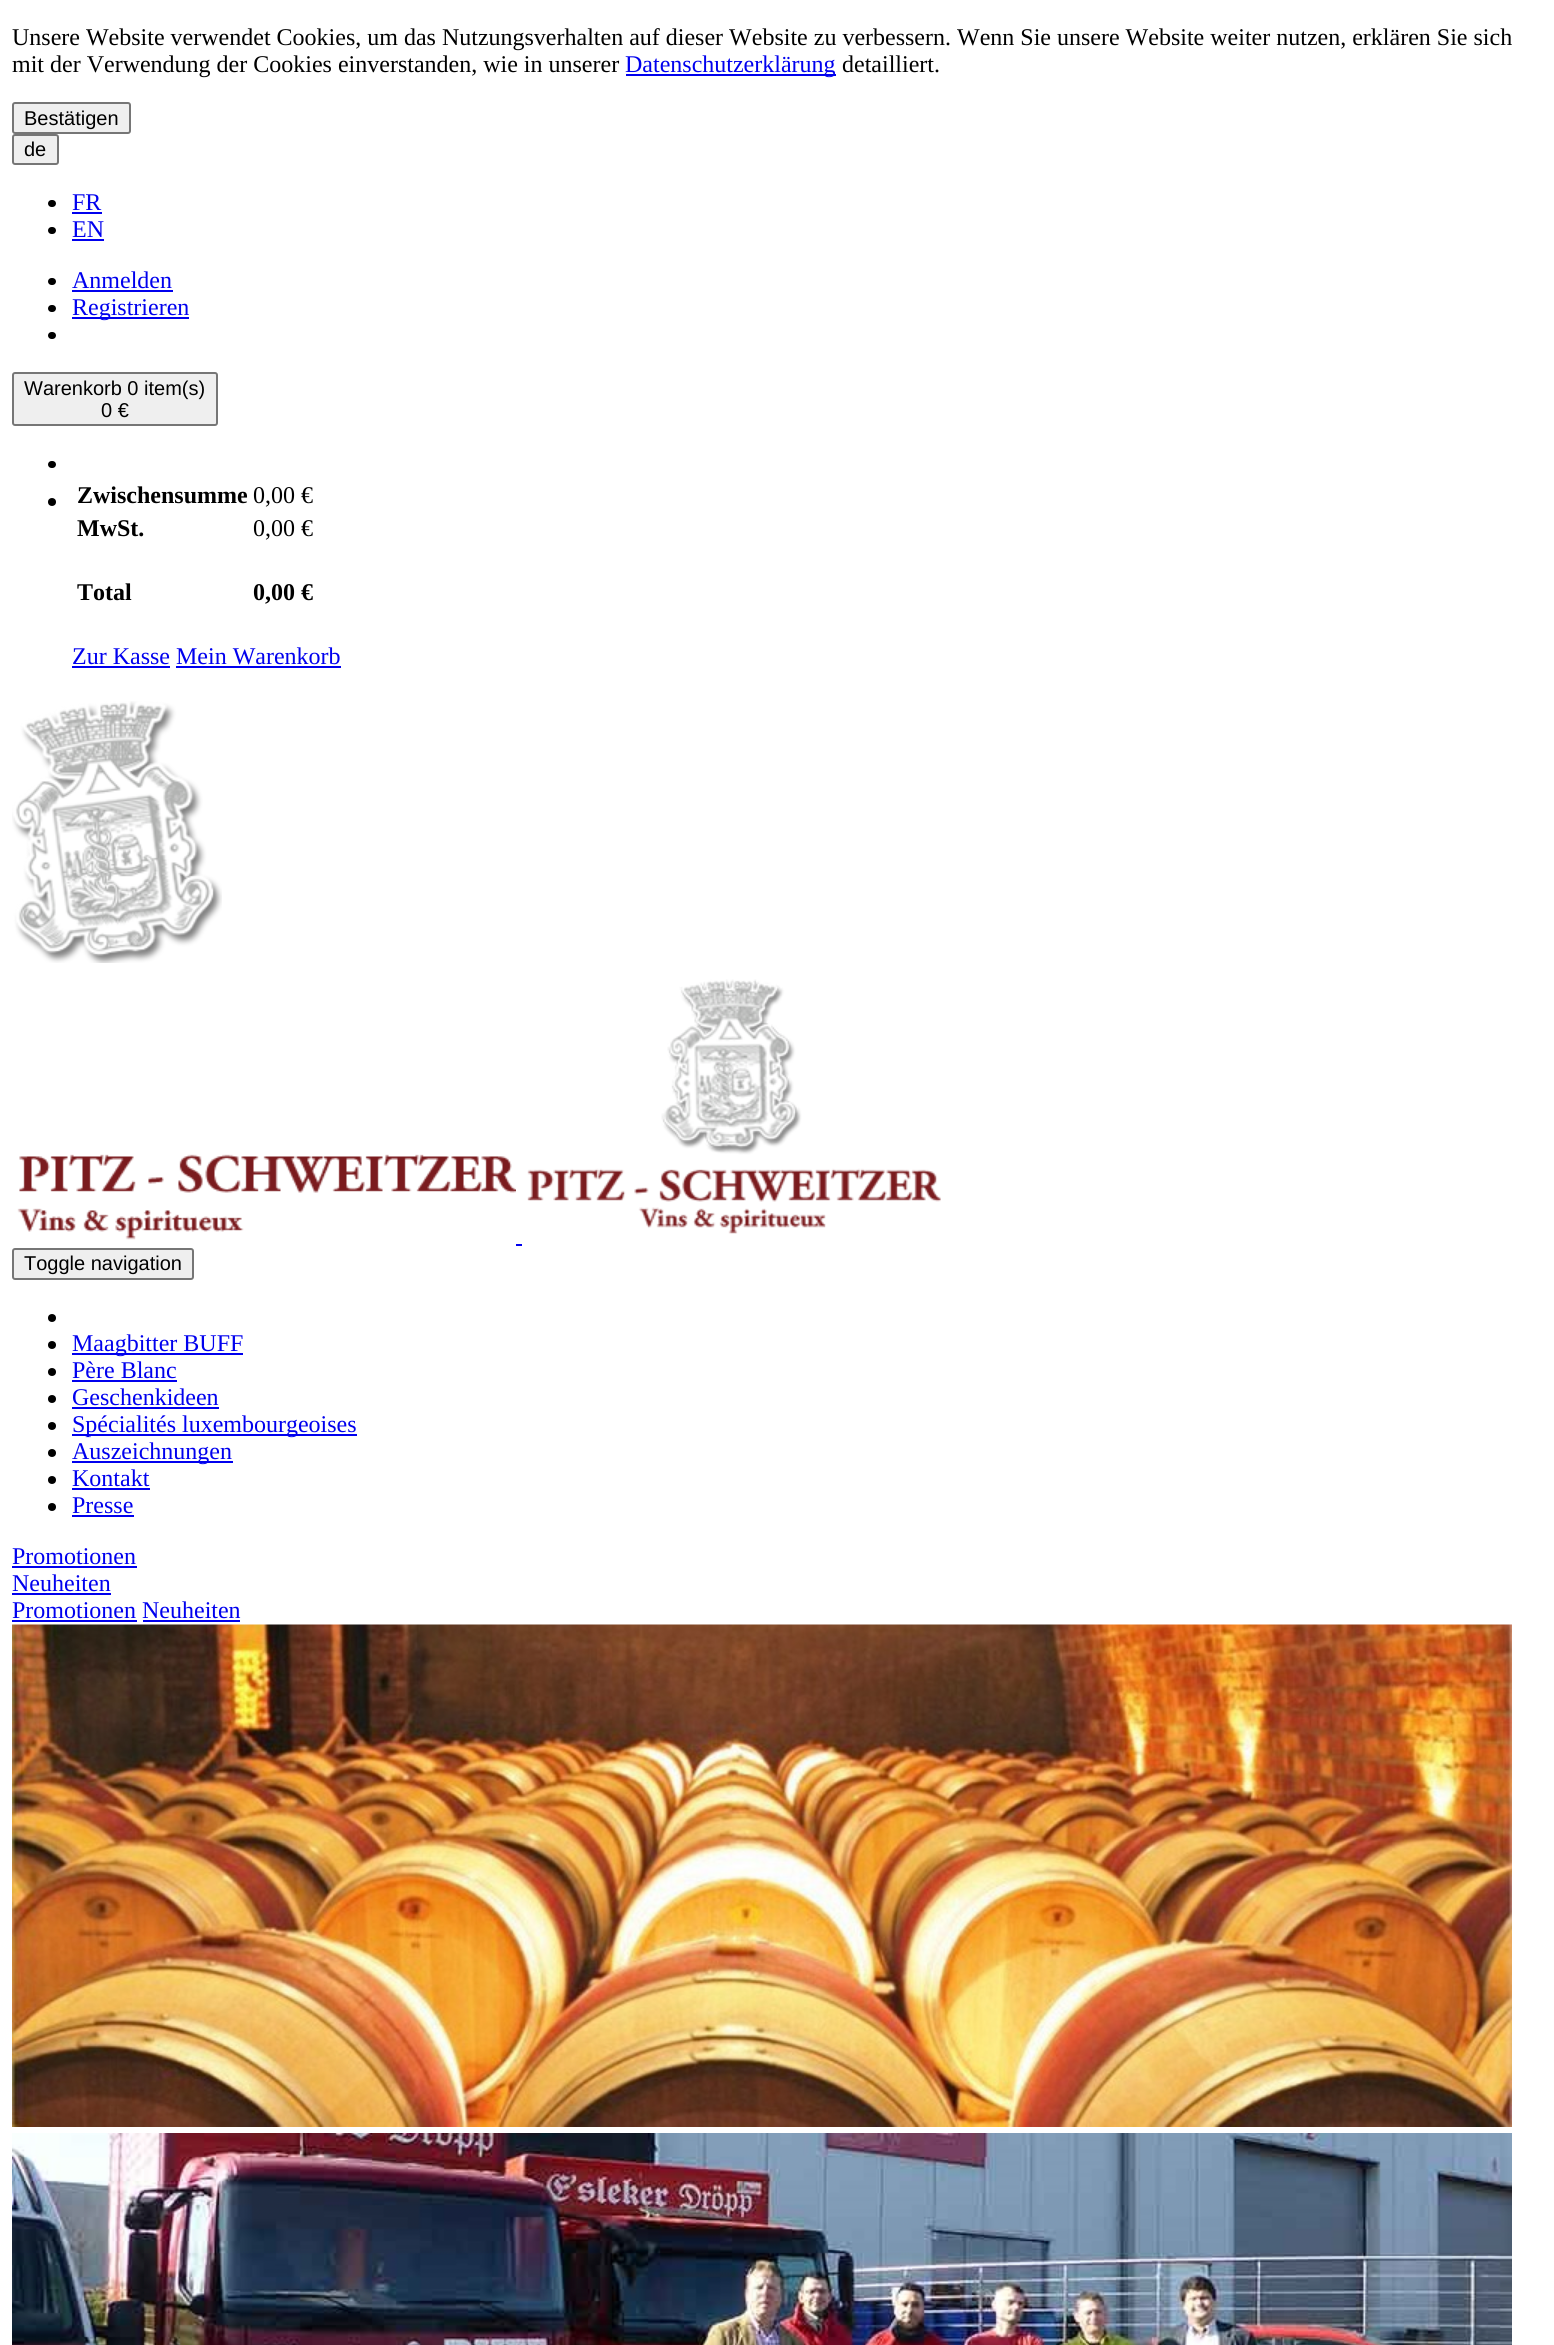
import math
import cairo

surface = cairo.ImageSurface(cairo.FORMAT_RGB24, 1554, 2345)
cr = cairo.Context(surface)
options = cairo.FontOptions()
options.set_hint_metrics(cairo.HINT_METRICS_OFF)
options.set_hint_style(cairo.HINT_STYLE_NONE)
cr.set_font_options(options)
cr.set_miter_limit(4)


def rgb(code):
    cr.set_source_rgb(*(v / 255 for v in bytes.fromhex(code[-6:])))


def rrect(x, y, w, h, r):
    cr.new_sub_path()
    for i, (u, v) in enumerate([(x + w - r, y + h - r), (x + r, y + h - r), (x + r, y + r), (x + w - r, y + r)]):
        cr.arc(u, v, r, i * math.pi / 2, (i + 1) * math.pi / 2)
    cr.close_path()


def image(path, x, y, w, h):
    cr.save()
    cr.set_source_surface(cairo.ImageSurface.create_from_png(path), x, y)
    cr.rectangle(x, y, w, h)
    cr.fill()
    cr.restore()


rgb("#ffffff")
cr.paint()
rgb("#0000ee")
cr.rectangle(626, 74, 210, 2)
cr.fill()
rgb("#efefef")
rrect(13, 103, 117, 30, 2)
cr.fill_preserve()
rgb("#767676")
cr.stroke()
rgb("#efefef")
rrect(13, 135, 45, 29, 2)
cr.fill_preserve()
rgb("#767676")
cr.stroke()
rgb("#000000")
rrect(48, 200, 8, 7, 3.5)
cr.fill()
rgb("#0000ee")
cr.rectangle(72, 212, 30, 2)
cr.fill()
rgb("#000000")
rrect(48, 227, 8, 7, 3.5)
cr.fill()
rgb("#0000ee")
cr.rectangle(72, 239, 32, 2)
cr.fill()
rgb("#000000")
rrect(48, 278, 8, 7, 3.5)
cr.fill()
rgb("#0000ee")
cr.rectangle(72, 290, 101, 2)
cr.fill()
rgb("#000000")
rrect(48, 305, 8, 7, 3.5)
cr.fill()
rgb("#0000ee")
cr.rectangle(72, 317, 117, 2)
cr.fill()
rgb("#000000")
rrect(48, 332, 8, 7, 3.5)
cr.fill()
rgb("#efefef")
rrect(13, 373, 204, 52, 2)
cr.fill_preserve()
rgb("#767676")
cr.stroke()
rgb("#000000")
rrect(48, 461, 8, 7, 3.5)
cr.fill()
cr.arc(52, 502, 4, 0, 2 * math.pi)
cr.fill()
rgb("#0000ee")
cr.rectangle(72, 666, 98, 2)
cr.fill()
cr.rectangle(176, 666, 165, 2)
cr.fill()
image("img/1.png", 12, 701, 210, 262)
image("img/2.png", 17, 1154, 499, 86)
image("img/3.png", 527, 979, 414, 255)
cr.rectangle(516, 1244, 6, 2)
cr.fill()
rgb("#efefef")
rrect(13, 1249, 180, 30, 2)
cr.fill_preserve()
rgb("#767676")
cr.stroke()
rgb("#000000")
cr.arc(52, 1318, 4, 0, 2 * math.pi)
cr.fill()
cr.arc(52, 1345, 4, 0, 2 * math.pi)
cr.fill()
rgb("#0000ee")
cr.rectangle(72, 1353, 171, 2)
cr.fill()
rgb("#000000")
cr.arc(52, 1372, 4, 0, 2 * math.pi)
cr.fill()
rgb("#0000ee")
cr.rectangle(72, 1380, 105, 2)
cr.fill()
rgb("#000000")
cr.arc(52, 1399, 4, 0, 2 * math.pi)
cr.fill()
rgb("#0000ee")
cr.rectangle(72, 1407, 147, 2)
cr.fill()
rgb("#000000")
cr.arc(52, 1426, 4, 0, 2 * math.pi)
cr.fill()
rgb("#0000ee")
cr.rectangle(72, 1434, 285, 2)
cr.fill()
rgb("#000000")
cr.arc(52, 1453, 4, 0, 2 * math.pi)
cr.fill()
rgb("#0000ee")
cr.rectangle(72, 1461, 161, 2)
cr.fill()
rgb("#000000")
cr.arc(52, 1480, 4, 0, 2 * math.pi)
cr.fill()
rgb("#0000ee")
cr.rectangle(72, 1488, 78, 2)
cr.fill()
rgb("#000000")
cr.arc(52, 1507, 4, 0, 2 * math.pi)
cr.fill()
for x, y, w, h, color in [
    (72, 1515, 62, 2, "#0000ee"),
    (12, 1566, 125, 2, "#0000ee"),
    (12, 1593, 99, 2, "#0000ee"),
    (12, 1620, 125, 2, "#0000ee"),
    (143, 1620, 97, 2, "#0000ee"),
]:
    rgb(color)
    cr.rectangle(x, y, w, h)
    cr.fill()
image("img/4.png", 12, 1624, 1500, 503)
image("img/5.png", 12, 2133, 1500, 212)
cr.select_font_face("Liberation Serif")
cr.set_font_size(24)
rgb("#000000")
cr.move_to(12, 45)
cr.show_text("Unsere Website verwendet Cookies, um das Nutzungsverhalten auf dieser Website zu verbessern. Wenn Sie unsere Website weiter nutzen, erklären Sie sich")
cr.move_to(12, 72)
cr.show_text("mit der Verwendung der Cookies einverstanden, wie in unserer")
rgb("#0000ee")
cr.move_to(625, 72)
cr.show_text("Datenschutzerklärung")
rgb("#000000")
cr.move_to(842, 72)
cr.show_text("detailliert.")
cr.select_font_face("Liberation Sans")
cr.set_font_size(20)
cr.move_to(24, 125)
cr.show_text("Bestätigen")
cr.move_to(24, 156)
cr.show_text("de")
cr.select_font_face("Liberation Serif")
cr.set_font_size(24)
rgb("#0000ee")
for x, y, s in [
    (72, 210, "FR"),
    (72, 237, "EN"),
    (72, 288, "Anmelden"),
    (72, 315, "Registrieren"),
]:
    cr.move_to(x, y)
    cr.show_text(s)
cr.select_font_face("Liberation Sans")
cr.set_font_size(20)
rgb("#000000")
cr.move_to(24, 395)
cr.show_text("Warenkorb 0 item(s)")
cr.move_to(101, 417)
cr.show_text("0 €")
cr.select_font_face("Liberation Serif", cairo.FONT_SLANT_NORMAL, cairo.FONT_WEIGHT_BOLD)
cr.set_font_size(24)
cr.move_to(77, 503)
cr.show_text("Zwischensumme")
cr.select_font_face("Liberation Serif")
cr.move_to(253, 503)
cr.show_text("0,00 €")
cr.select_font_face("Liberation Serif", cairo.FONT_SLANT_NORMAL, cairo.FONT_WEIGHT_BOLD)
cr.move_to(77, 536)
cr.show_text("MwSt.")
cr.select_font_face("Liberation Serif")
cr.move_to(253, 536)
cr.show_text("0,00 €")
cr.select_font_face("Liberation Serif", cairo.FONT_SLANT_NORMAL, cairo.FONT_WEIGHT_BOLD)
cr.move_to(77, 600)
cr.show_text("Total")
cr.move_to(253, 600)
cr.show_text("0,00 €")
cr.select_font_face("Liberation Serif")
rgb("#0000ee")
cr.move_to(72, 664)
cr.show_text("Zur Kasse Mein Warenkorb")
cr.select_font_face("Liberation Sans")
cr.set_font_size(20)
rgb("#000000")
cr.move_to(24, 1270)
cr.show_text("Toggle navigation")
cr.select_font_face("Liberation Serif")
cr.set_font_size(24)
rgb("#0000ee")
for x, y, s in [
    (72, 1351, "Maagbitter BUFF"),
    (72, 1378, "Père Blanc"),
    (72, 1405, "Geschenkideen"),
    (72, 1432, "Spécialités luxembourgeoises"),
    (72, 1459, "Auszeichnungen"),
    (72, 1486, "Kontakt"),
    (72, 1513, "Presse"),
    (12, 1564, "Promotionen"),
    (12, 1591, "Neuheiten"),
    (12, 1618, "Promotionen Neuheiten"),
]:
    cr.move_to(x, y)
    cr.show_text(s)
surface.write_to_png("page.png")
